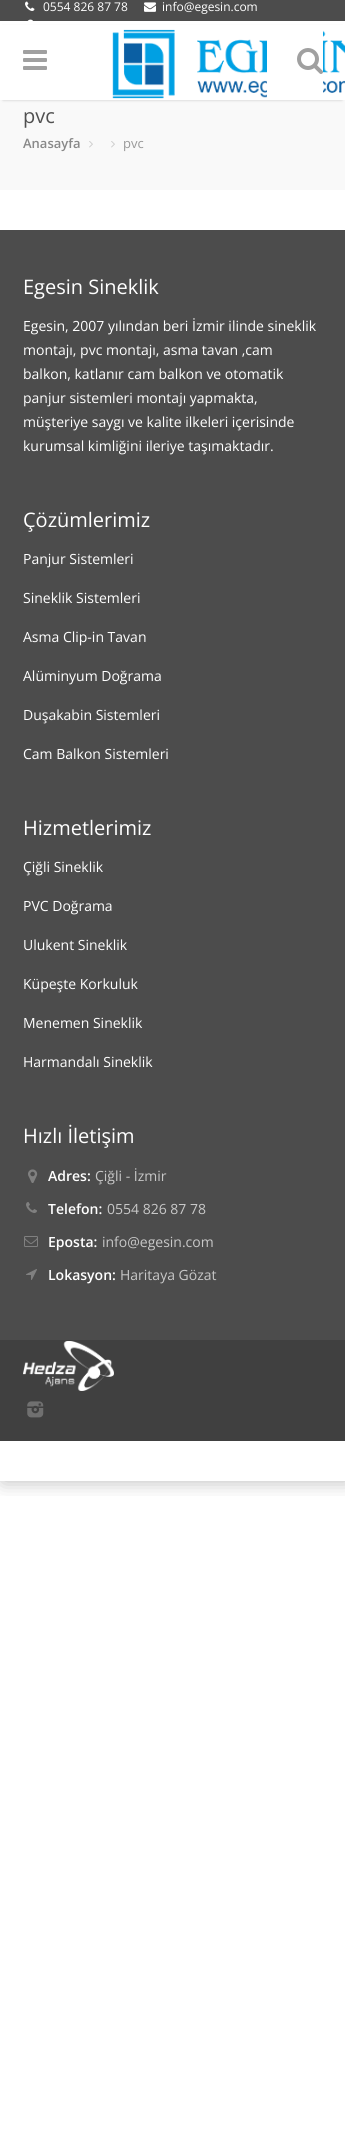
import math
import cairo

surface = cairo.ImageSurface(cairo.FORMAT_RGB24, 345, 2144)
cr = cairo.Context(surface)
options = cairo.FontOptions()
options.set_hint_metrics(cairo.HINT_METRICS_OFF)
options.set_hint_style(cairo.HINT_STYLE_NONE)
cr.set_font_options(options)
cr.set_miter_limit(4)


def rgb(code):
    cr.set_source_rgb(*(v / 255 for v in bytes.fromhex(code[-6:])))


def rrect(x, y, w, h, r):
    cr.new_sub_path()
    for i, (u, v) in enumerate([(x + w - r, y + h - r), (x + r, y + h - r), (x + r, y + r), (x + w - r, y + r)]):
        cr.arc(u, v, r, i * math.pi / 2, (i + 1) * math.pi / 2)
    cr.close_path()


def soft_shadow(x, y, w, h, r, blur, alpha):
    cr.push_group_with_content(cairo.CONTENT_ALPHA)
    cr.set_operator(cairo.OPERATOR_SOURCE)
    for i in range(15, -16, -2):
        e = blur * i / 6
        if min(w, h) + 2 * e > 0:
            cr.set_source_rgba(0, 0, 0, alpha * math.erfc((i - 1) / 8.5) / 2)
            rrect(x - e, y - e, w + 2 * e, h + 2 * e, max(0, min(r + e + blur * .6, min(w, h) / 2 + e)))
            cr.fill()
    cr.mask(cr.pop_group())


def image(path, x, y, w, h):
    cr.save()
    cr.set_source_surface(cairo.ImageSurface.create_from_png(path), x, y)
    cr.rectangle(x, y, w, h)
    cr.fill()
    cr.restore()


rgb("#ffffff")
cr.paint()
cr.save()
cr.rectangle(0, 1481, 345, 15)
cr.clip()
rgb("#000000")
soft_shadow(3, 59, 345, 1422, 0, 10, 0.28)
cr.restore()
rgb("#4c4c4c")
cr.rectangle(0, 0, 345, 21)
cr.fill()
image("img/1.png", 25, 1, 10, 10)
image("img/2.png", 144, 2, 12, 10)
image("img/3.png", 27, 19, 6, 2)
rgb("#f9f9f9")
cr.rectangle(0, 100, 345, 90)
cr.fill()
rgb("#000000")
soft_shadow(3, 27, 339, 73, 0, 1.5, 0.2)
rgb("#ffffff")
cr.rectangle(0, 25, 345, 75)
cr.fill()
image("img/4.png", 112, 29, 233, 70)
image("img/5.png", 23, 50, 24, 20)
cr.rectangle(267, 30, 56, 68)
cr.fill()
image("img/6.png", 297, 48, 26, 26)
image("img/7.png", 89, 141, 4, 7)
image("img/7.png", 111, 141, 4, 7)
rgb("#4c4c4c")
cr.rectangle(0, 230, 345, 1110)
cr.fill()
image("img/8.png", 28, 1169, 10, 14)
image("img/9.png", 26, 1202, 11, 11)
image("img/10.png", 24, 1236, 14, 11)
image("img/11.png", 26, 1269, 11, 11)
rgb("#404040")
cr.rectangle(0, 1340, 345, 101)
cr.fill()
image("img/12.png", 23, 1341, 91, 50)
image("img/13.png", 27, 1401, 17, 17)
cr.select_font_face("Open Sans")
cr.set_font_size(12)
rgb("#ffffff")
cr.move_to(43, 11)
cr.show_text("0554 826 87 78")
cr.move_to(162, 11)
cr.show_text("info@egesin.com")
cr.set_font_size(20)
rgb("#505050")
cr.move_to(23, 123)
cr.show_text("pvc")
cr.select_font_face("Open Sans SemiBold")
cr.set_font_size(13)
rgb("#888888")
cr.move_to(23, 148)
cr.show_text("Anasayfa")
cr.select_font_face("Open Sans")
rgb("#999999")
cr.move_to(123, 148)
cr.show_text("pvc")
cr.set_font_size(20)
rgb("#ffffff")
cr.move_to(23, 294)
cr.show_text("Egesin Sineklik")
cr.set_font_size(14)
for x, y, s in [
    (23, 331, "Egesin, 2007 yılından beri İzmir ilinde sineklik"),
    (23, 355, "montajı, pvc montajı, asma tavan ,cam"),
    (23, 379, "balkon, katlanır cam balkon ve otomatik"),
    (23, 403, "panjur sistemleri montajı yapmakta,"),
    (23, 427, "müşteriye saygı ve kalite ilkeleri içerisinde"),
    (23, 451, "kurumsal kimliğini ileriye taşımaktadır."),
]:
    cr.move_to(x, y)
    cr.show_text(s)
cr.set_font_size(20)
cr.move_to(23, 527)
cr.show_text("Çözümlerimiz")
cr.set_font_size(14)
for x, y, s in [
    (23, 564, "Panjur Sistemleri"),
    (23, 603, "Sineklik Sistemleri"),
    (23, 642, "Asma Clip-in Tavan"),
    (23, 681, "Alüminyum Doğrama"),
    (23, 720, "Duşakabin Sistemleri"),
    (23, 759, "Cam Balkon Sistemleri"),
]:
    cr.move_to(x, y)
    cr.show_text(s)
cr.set_font_size(20)
cr.move_to(23, 835)
cr.show_text("Hizmetlerimiz")
cr.set_font_size(14)
for x, y, s in [
    (23, 872, "Çiğli Sineklik"),
    (23, 911, "PVC Doğrama"),
    (23, 950, "Ulukent Sineklik"),
    (23, 989, "Küpeşte Korkuluk"),
    (23, 1028, "Menemen Sineklik"),
    (23, 1067, "Harmandalı Sineklik"),
]:
    cr.move_to(x, y)
    cr.show_text(s)
cr.set_font_size(20)
cr.move_to(23, 1143)
cr.show_text("Hızlı İletişim")
cr.select_font_face("Open Sans SemiBold")
cr.set_font_size(14)
cr.move_to(48, 1181)
cr.show_text("Adres:")
cr.select_font_face("Open Sans")
rgb("#c8c8c8")
cr.move_to(95, 1181)
cr.show_text("Çiğli - İzmir")
cr.select_font_face("Open Sans SemiBold")
rgb("#ffffff")
cr.move_to(48, 1214)
cr.show_text("Telefon:")
cr.select_font_face("Open Sans")
rgb("#c8c8c8")
cr.move_to(107, 1214)
cr.show_text("0554 826 87 78")
cr.select_font_face("Open Sans SemiBold")
rgb("#ffffff")
cr.move_to(48, 1247)
cr.show_text("Eposta:")
cr.select_font_face("Open Sans")
rgb("#c8c8c8")
cr.move_to(102, 1247)
cr.show_text("info@egesin.com")
cr.select_font_face("Open Sans SemiBold")
rgb("#ffffff")
cr.move_to(48, 1280)
cr.show_text("Lokasyon:")
cr.select_font_face("Open Sans")
rgb("#c8c8c8")
cr.move_to(120, 1280)
cr.show_text("Haritaya Gözat")
surface.write_to_png("page.png")
